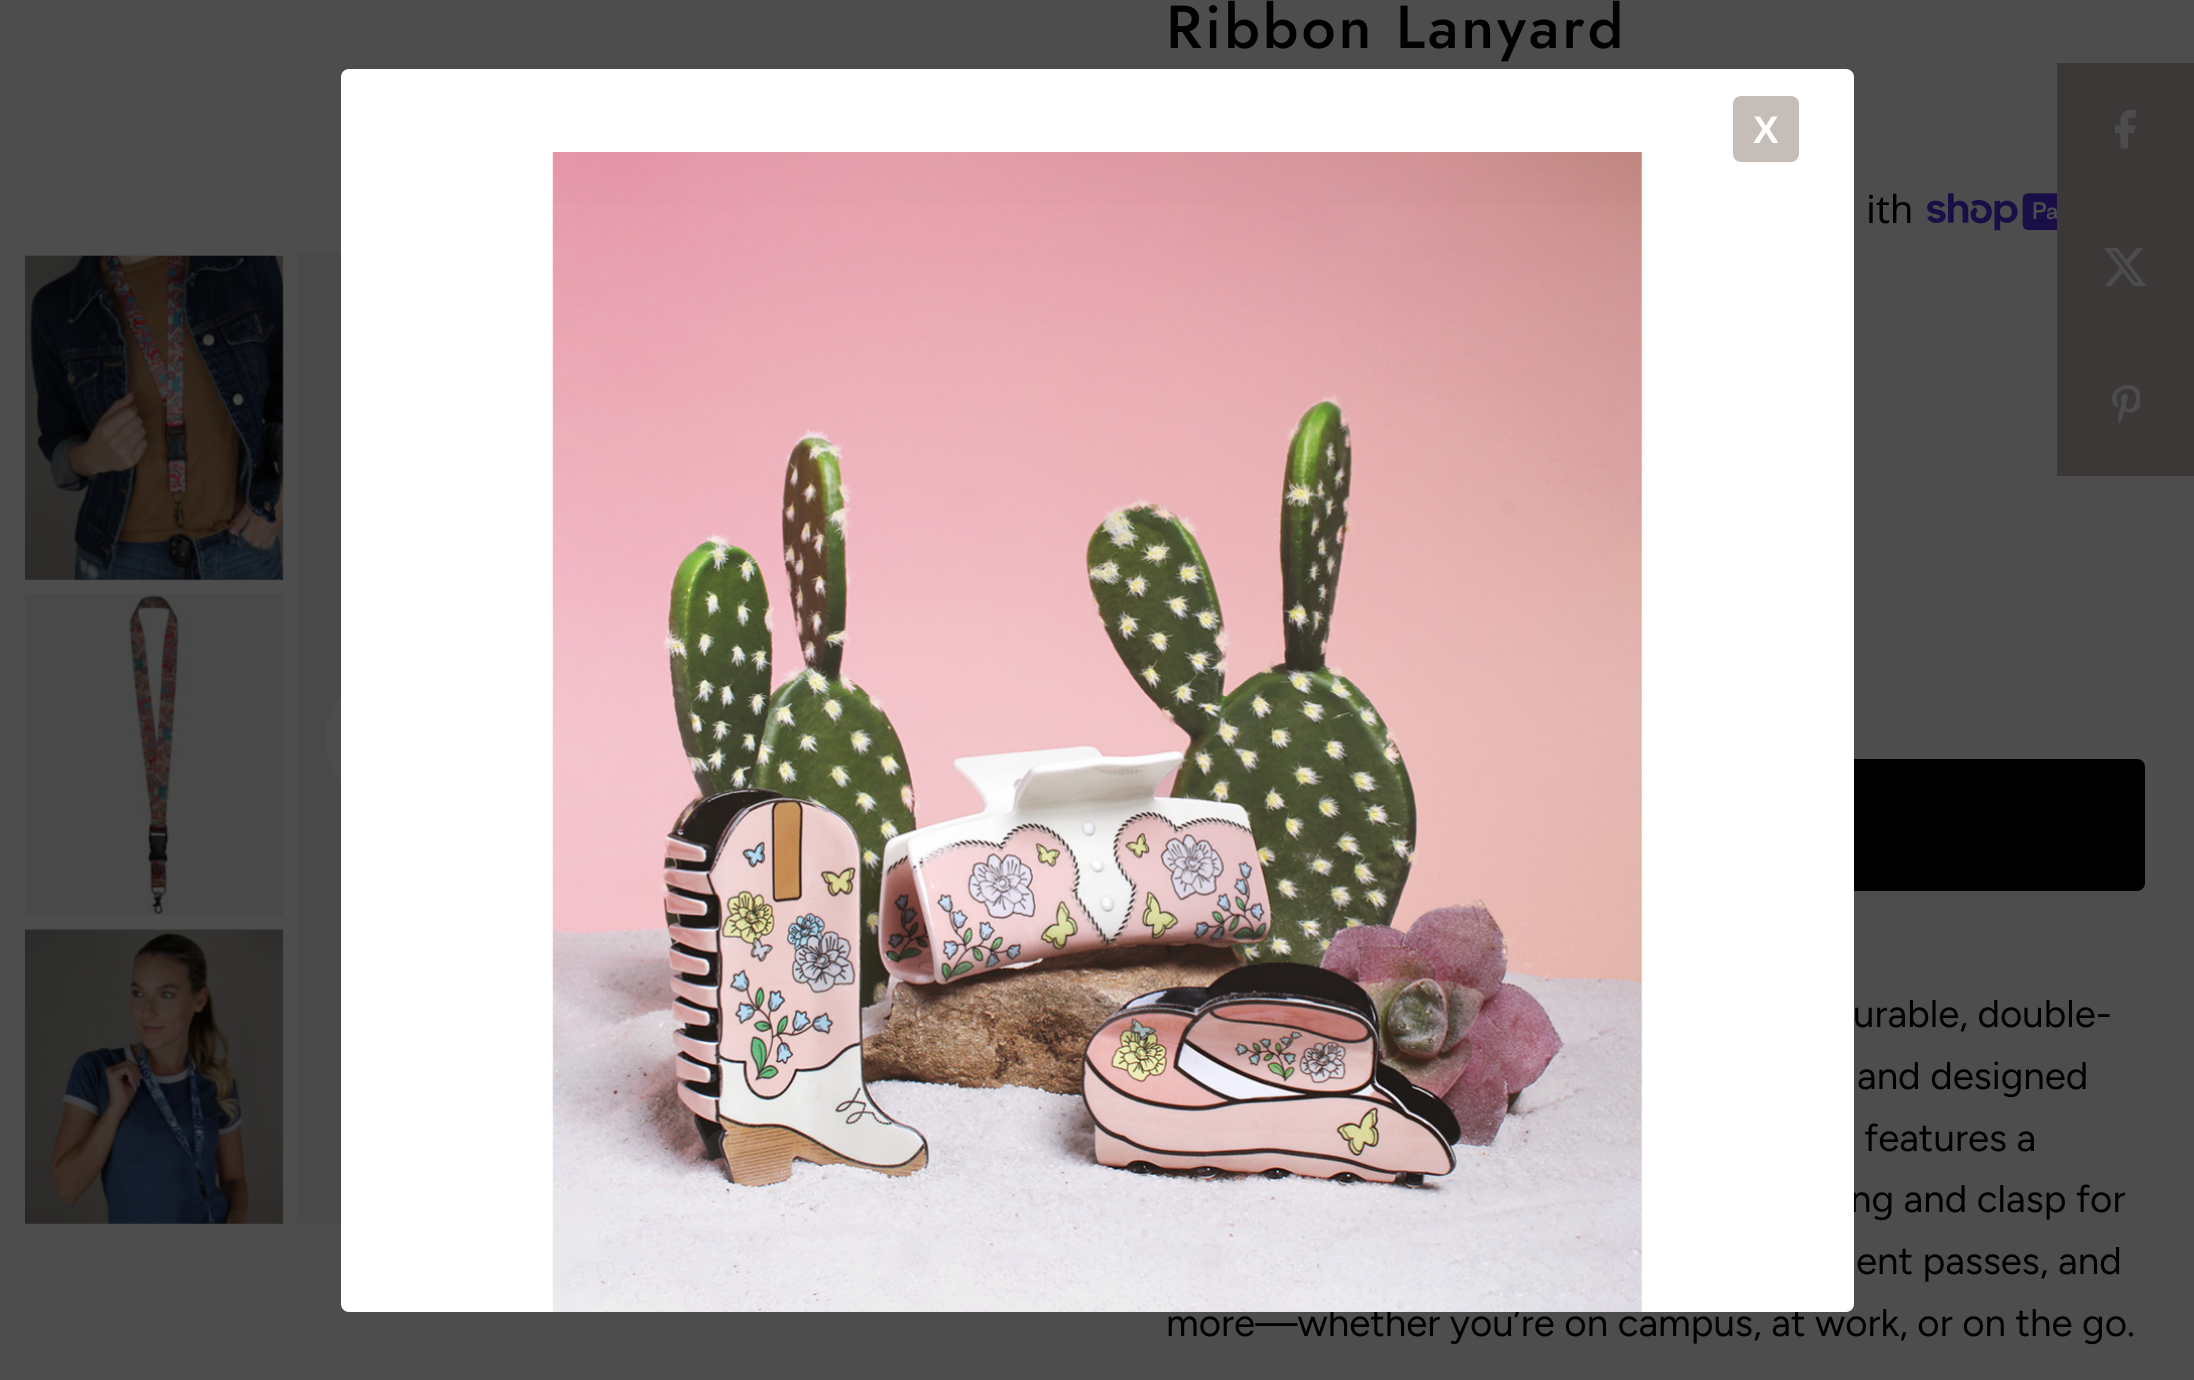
import math
import cairo

surface = cairo.ImageSurface(cairo.FORMAT_RGB24, 2194, 1380)
cr = cairo.Context(surface)
options = cairo.FontOptions()
options.set_hint_metrics(cairo.HINT_METRICS_OFF)
options.set_hint_style(cairo.HINT_STYLE_NONE)
cr.set_font_options(options)
cr.set_miter_limit(4)


def rgb(code):
    cr.set_source_rgb(*(v / 255 for v in bytes.fromhex(code[-6:])))


def tracked(x, y, s, letter, word):
    cr.move_to(x, y)
    for ch in s:
        cr.show_text(ch)
        cr.rel_move_to(letter + word * (ch == ' '), 0)


def rrect(x, y, w, h, r):
    cr.new_sub_path()
    for i, (u, v) in enumerate([(x + w - r, y + h - r), (x + r, y + h - r), (x + r, y + r), (x + w - r, y + r)]):
        cr.arc(u, v, r, i * math.pi / 2, (i + 1) * math.pi / 2)
    cr.close_path()


def image(path, x, y, w, h):
    cr.save()
    cr.set_source_surface(cairo.ImageSurface.create_from_png(path), x, y)
    cr.rectangle(x, y, w, h)
    cr.fill()
    cr.restore()


rgb("#4d4d4d")
cr.paint()
image("img/1.png", 25, 255, 259, 326)
image("img/2.png", 25, 593, 258, 323)
image("img/3.png", 25, 928, 259, 296)
image("img/4.png", 297, 253, 44, 971)
rgb("#4d4d4d")
cr.arc(386.5, 738.5, 61.5, 0, 2 * math.pi)
cr.fill()
image("img/5.png", 1927, 193, 130, 38)
rgb("#000000")
rrect(1166, 759, 979, 132, 8)
cr.fill()
rgb("#3b3837")
cr.rectangle(2057, 63, 137, 413)
cr.fill()
image("img/6.png", 2115, 110, 21, 39)
image("img/7.png", 2104, 248, 43, 38)
image("img/8.png", 2112, 385, 28, 39)
cr.select_font_face("Jost Medium")
cr.set_font_size(60.5)
rgb("#000000")
tracked(1166, 48, "Ribbon Lanyard", 3, 0)
cr.select_font_face("Noto Sans")
cr.set_font_size(38.5)
cr.move_to(1866, 223)
cr.show_text("ith")
cr.select_font_face("Figtree")
for x, y, s in [
    (1853, 1027, "urable, double-"),
    (1857, 1089, "and designed"),
    (1864, 1151, "features a"),
    (1850, 1212, "ng and clasp for"),
    (1856, 1274, "ent passes, and"),
    (1166, 1336, "more—whether you’re on campus, at work, or on the go."),
]:
    cr.move_to(x, y)
    cr.show_text(s)
rgb("#ffffff")
rrect(341, 69, 1513, 1243, 8)
cr.fill()
image("img/9.png", 552, 152, 1091, 1160)
rgb("#c4bdb8")
rrect(1733, 96, 66, 66, 8)
cr.fill()
cr.select_font_face("Liberation Sans", cairo.FONT_SLANT_NORMAL, cairo.FONT_WEIGHT_BOLD)
rgb("#ffffff")
cr.move_to(1753, 143)
cr.show_text("X")
surface.write_to_png("page.png")
